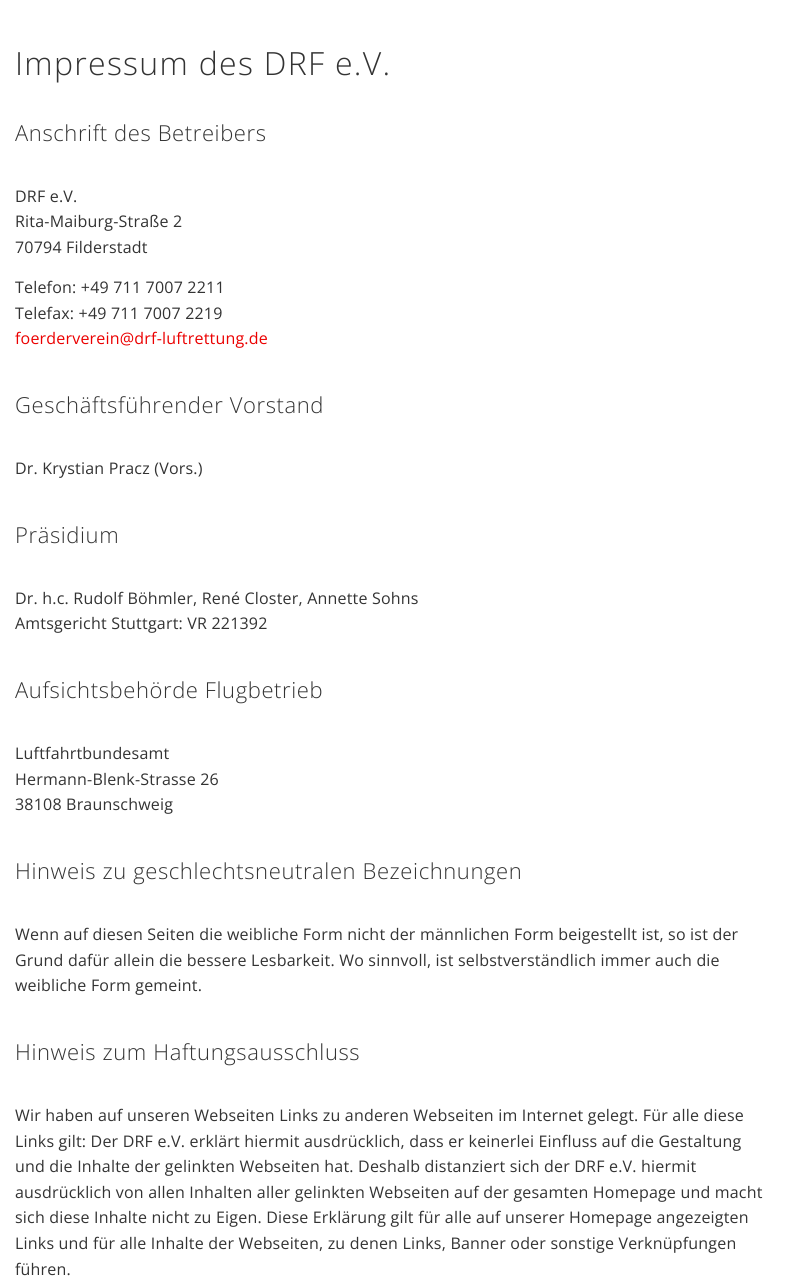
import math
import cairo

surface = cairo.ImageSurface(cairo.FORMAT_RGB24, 787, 1277)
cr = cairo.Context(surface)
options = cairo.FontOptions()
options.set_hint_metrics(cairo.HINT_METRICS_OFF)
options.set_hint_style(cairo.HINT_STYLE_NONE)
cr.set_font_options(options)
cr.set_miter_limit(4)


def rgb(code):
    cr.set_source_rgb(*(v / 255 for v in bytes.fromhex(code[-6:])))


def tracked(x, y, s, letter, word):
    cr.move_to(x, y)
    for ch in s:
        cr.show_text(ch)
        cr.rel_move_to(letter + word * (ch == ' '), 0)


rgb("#ffffff")
cr.paint()
cr.select_font_face("Open Sans Light")
cr.set_font_size(32)
rgb("#333333")
tracked(15, 75, "Impressum des DRF e.V.", 1.3, 0)
cr.set_font_size(22)
tracked(15, 141, "Anschrift des Betreibers", 0.6, 0)
cr.select_font_face("Open Sans")
cr.set_font_size(16)
for x, y, s in [
    (15, 202, "DRF e.V."),
    (15, 227, "Rita-Maiburg-Straße 2"),
    (15, 253, "70794 Filderstadt"),
    (15, 293, "Telefon: +49 711 7007 2211"),
    (15, 319, "Telefax: +49 711 7007 2219"),
]:
    tracked(x, y, s, 0.2, 0)
rgb("#eb0000")
tracked(15, 344, "foerderverein@drf-luftrettung.de", 0.2, 0)
cr.select_font_face("Open Sans Light")
cr.set_font_size(22)
rgb("#333333")
tracked(15, 413, "Geschäftsführender Vorstand", 0.6, 0)
cr.select_font_face("Open Sans")
cr.set_font_size(16)
tracked(15, 474, "Dr. Krystian Pracz (Vors.)", 0.2, 0)
cr.select_font_face("Open Sans Light")
cr.set_font_size(22)
tracked(15, 543, "Präsidium", 0.6, 0)
cr.select_font_face("Open Sans")
cr.set_font_size(16)
tracked(15, 604, "Dr. h.c. Rudolf Böhmler, René Closter, Annette Sohns", 0.2, 0)
tracked(15, 629, "Amtsgericht Stuttgart: VR 221392", 0.2, 0)
cr.select_font_face("Open Sans Light")
cr.set_font_size(22)
tracked(15, 698, "Aufsichtsbehörde Flugbetrieb", 0.6, 0)
cr.select_font_face("Open Sans")
cr.set_font_size(16)
for x, y, s in [
    (15, 759, "Luftfahrtbundesamt"),
    (15, 785, "Hermann-Blenk-Strasse 26"),
    (15, 810, "38108 Braunschweig"),
]:
    tracked(x, y, s, 0.2, 0)
cr.select_font_face("Open Sans Light")
cr.set_font_size(22)
tracked(15, 879, "Hinweis zu geschlechtsneutralen Bezeichnungen", 0.6, 0)
cr.select_font_face("Open Sans")
cr.set_font_size(16)
for x, y, s in [
    (15, 940, "Wenn auf diesen Seiten die weibliche Form nicht der männlichen Form beigestellt ist, so ist der"),
    (15, 966, "Grund dafür allein die bessere Lesbarkeit. Wo sinnvoll, ist selbstverständlich immer auch die"),
    (15, 991, "weibliche Form gemeint."),
]:
    tracked(x, y, s, 0.2, 0)
cr.select_font_face("Open Sans Light")
cr.set_font_size(22)
tracked(15, 1060, "Hinweis zum Haftungsausschluss", 0.6, 0)
cr.select_font_face("Open Sans")
cr.set_font_size(16)
for x, y, s in [
    (15, 1121, "Wir haben auf unseren Webseiten Links zu anderen Webseiten im Internet gelegt. Für alle diese"),
    (15, 1147, "Links gilt: Der DRF e.V. erklärt hiermit ausdrücklich, dass er keinerlei Einfluss auf die Gestaltung"),
    (15, 1172, "und die Inhalte der gelinkten Webseiten hat. Deshalb distanziert sich der DRF e.V. hiermit"),
    (15, 1198, "ausdrücklich von allen Inhalten aller gelinkten Webseiten auf der gesamten Homepage und macht"),
    (15, 1223, "sich diese Inhalte nicht zu Eigen. Diese Erklärung gilt für alle auf unserer Homepage angezeigten"),
    (15, 1249, "Links und für alle Inhalte der Webseiten, zu denen Links, Banner oder sonstige Verknüpfungen"),
    (15, 1275, "führen."),
]:
    tracked(x, y, s, 0.2, 0)
surface.write_to_png("page.png")
